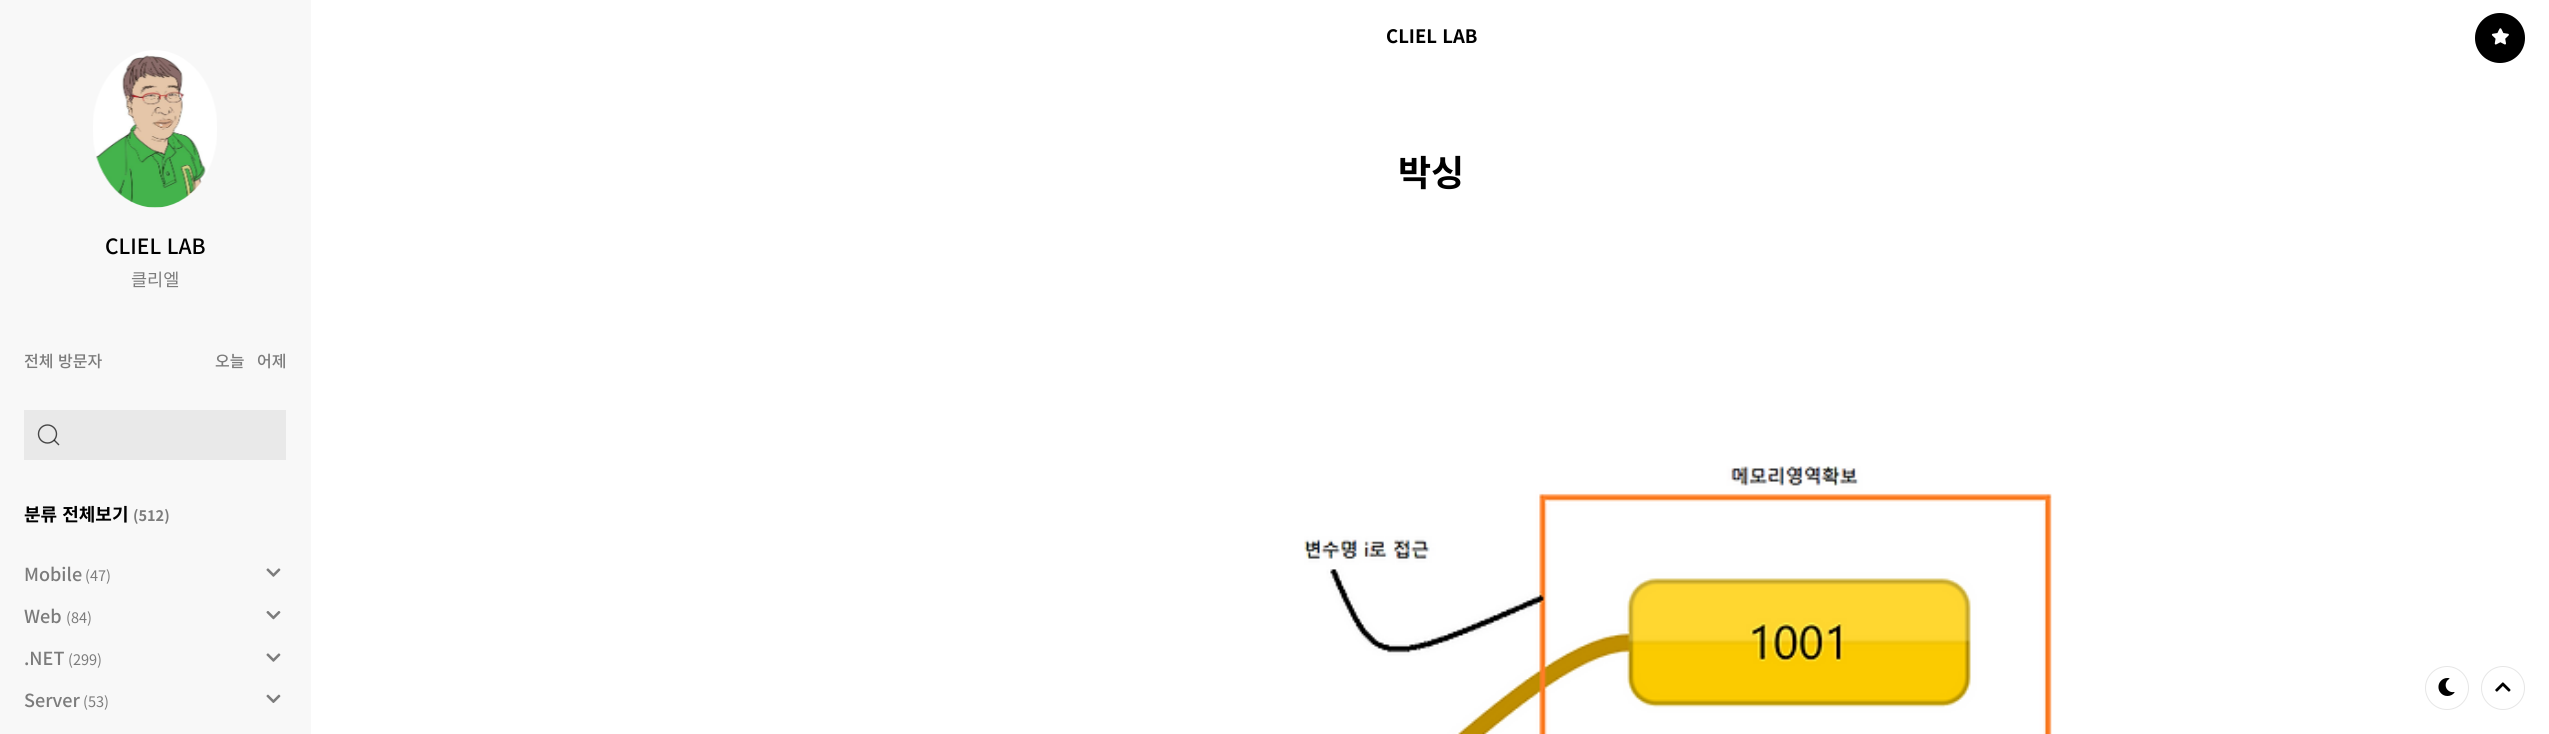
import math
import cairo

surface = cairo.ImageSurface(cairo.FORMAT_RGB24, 2549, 734)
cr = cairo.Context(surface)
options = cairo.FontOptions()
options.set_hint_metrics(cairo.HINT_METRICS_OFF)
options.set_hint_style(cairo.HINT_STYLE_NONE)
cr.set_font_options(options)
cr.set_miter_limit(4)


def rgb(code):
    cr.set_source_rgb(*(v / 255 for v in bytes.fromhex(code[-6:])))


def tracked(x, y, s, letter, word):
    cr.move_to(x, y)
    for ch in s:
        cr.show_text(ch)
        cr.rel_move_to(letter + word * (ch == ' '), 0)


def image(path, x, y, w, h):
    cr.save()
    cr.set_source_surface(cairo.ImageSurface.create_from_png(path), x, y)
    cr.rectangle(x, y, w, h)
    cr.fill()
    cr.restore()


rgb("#ffffff")
cr.paint()
rgb("#000000")
cr.arc(2500, 38, 25, 0, 2 * math.pi)
cr.fill()
cr.arc(2500, 38, 24.5, 0, 2 * math.pi)
cr.set_source_rgba(0, 0, 0, 0.1)
cr.set_line_width(1)
cr.stroke()
image("img/1.png", 2491, 28, 18, 17)
image("img/2.png", 1304, 466, 748, 268)
rgb("#f8f8f8")
cr.rectangle(0, 0, 311, 734)
cr.fill()
image("img/3.png", 93, 50, 124, 158)
rgb("#e9e9e9")
cr.rectangle(24, 410, 262, 50)
cr.fill()
cr.arc(47.5, 434, 9, 0, 2 * math.pi)
rgb("#464646")
cr.set_line_width(1.4)
cr.stroke()
cr.new_path()
cr.move_to(54, 440)
cr.line_to(59, 445)
cr.close_path()
cr.set_source_rgba(0, 0, 0, 0.7)
cr.stroke()
image("img/4.png", 266, 568, 15, 9)
image("img/5.png", 266, 611, 15, 9)
image("img/4.png", 266, 653, 15, 9)
image("img/6.png", 266, 694, 15, 9)
cr.arc(2447, 688, 21.5, 0, 2 * math.pi)
rgb("#e6e6e6")
cr.set_line_width(1)
cr.stroke()
image("img/7.png", 2438, 678, 17, 18)
cr.arc(2503, 688, 21.5, 0, 2 * math.pi)
cr.stroke()
image("img/8.png", 2495, 682, 16, 10)
cr.select_font_face("Noto Sans KR", cairo.FONT_SLANT_NORMAL, cairo.FONT_WEIGHT_BOLD)
cr.set_font_size(18.5)
rgb("#000000")
tracked(1386, 43, "CLIEL LAB", 0, 1)
cr.set_font_size(36)
cr.move_to(1398, 186)
cr.show_text("박싱")
cr.select_font_face("Noto Sans KR Medium")
cr.set_font_size(21)
tracked(105, 254, "CLIEL LAB", 0, 1)
cr.select_font_face("Noto Sans KR")
cr.set_font_size(17.5)
rgb("#7c7c7c")
cr.move_to(131, 286)
cr.show_text("클리엘")
cr.select_font_face("Noto Sans KR Medium")
cr.set_font_size(16)
tracked(24, 367, "전체 방문자", 0, 1)
cr.move_to(215, 367)
cr.show_text("오늘")
cr.move_to(257, 367)
cr.show_text("어제")
cr.select_font_face("Noto Sans KR", cairo.FONT_SLANT_NORMAL, cairo.FONT_WEIGHT_BOLD)
cr.set_font_size(18)
rgb("#000000")
tracked(24, 521, "분류 전체보기", 0, 1)
cr.set_font_size(14.5)
rgb("#7c7c7c")
cr.move_to(133, 521)
cr.show_text("(512)")
cr.select_font_face("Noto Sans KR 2 Medium")
cr.set_font_size(18)
cr.move_to(24, 581)
cr.show_text("Mobile")
cr.select_font_face("Noto Sans KR")
cr.set_font_size(14.5)
cr.move_to(85, 581)
cr.show_text("(47)")
cr.select_font_face("Noto Sans KR 2 Medium")
cr.set_font_size(18)
cr.move_to(24, 623)
cr.show_text("Web")
cr.select_font_face("Noto Sans KR")
cr.set_font_size(14.5)
cr.move_to(66, 623)
cr.show_text("(84)")
cr.select_font_face("Noto Sans KR 2 Medium")
cr.set_font_size(18)
cr.move_to(24, 665)
cr.show_text(".NET")
cr.select_font_face("Noto Sans KR")
cr.set_font_size(14.5)
cr.move_to(68, 665)
cr.show_text("(299)")
cr.select_font_face("Noto Sans KR 2 Medium")
cr.set_font_size(18)
cr.move_to(24, 707)
cr.show_text("Server")
cr.select_font_face("Noto Sans KR")
cr.set_font_size(14.5)
cr.move_to(83, 707)
cr.show_text("(53)")
surface.write_to_png("page.png")
